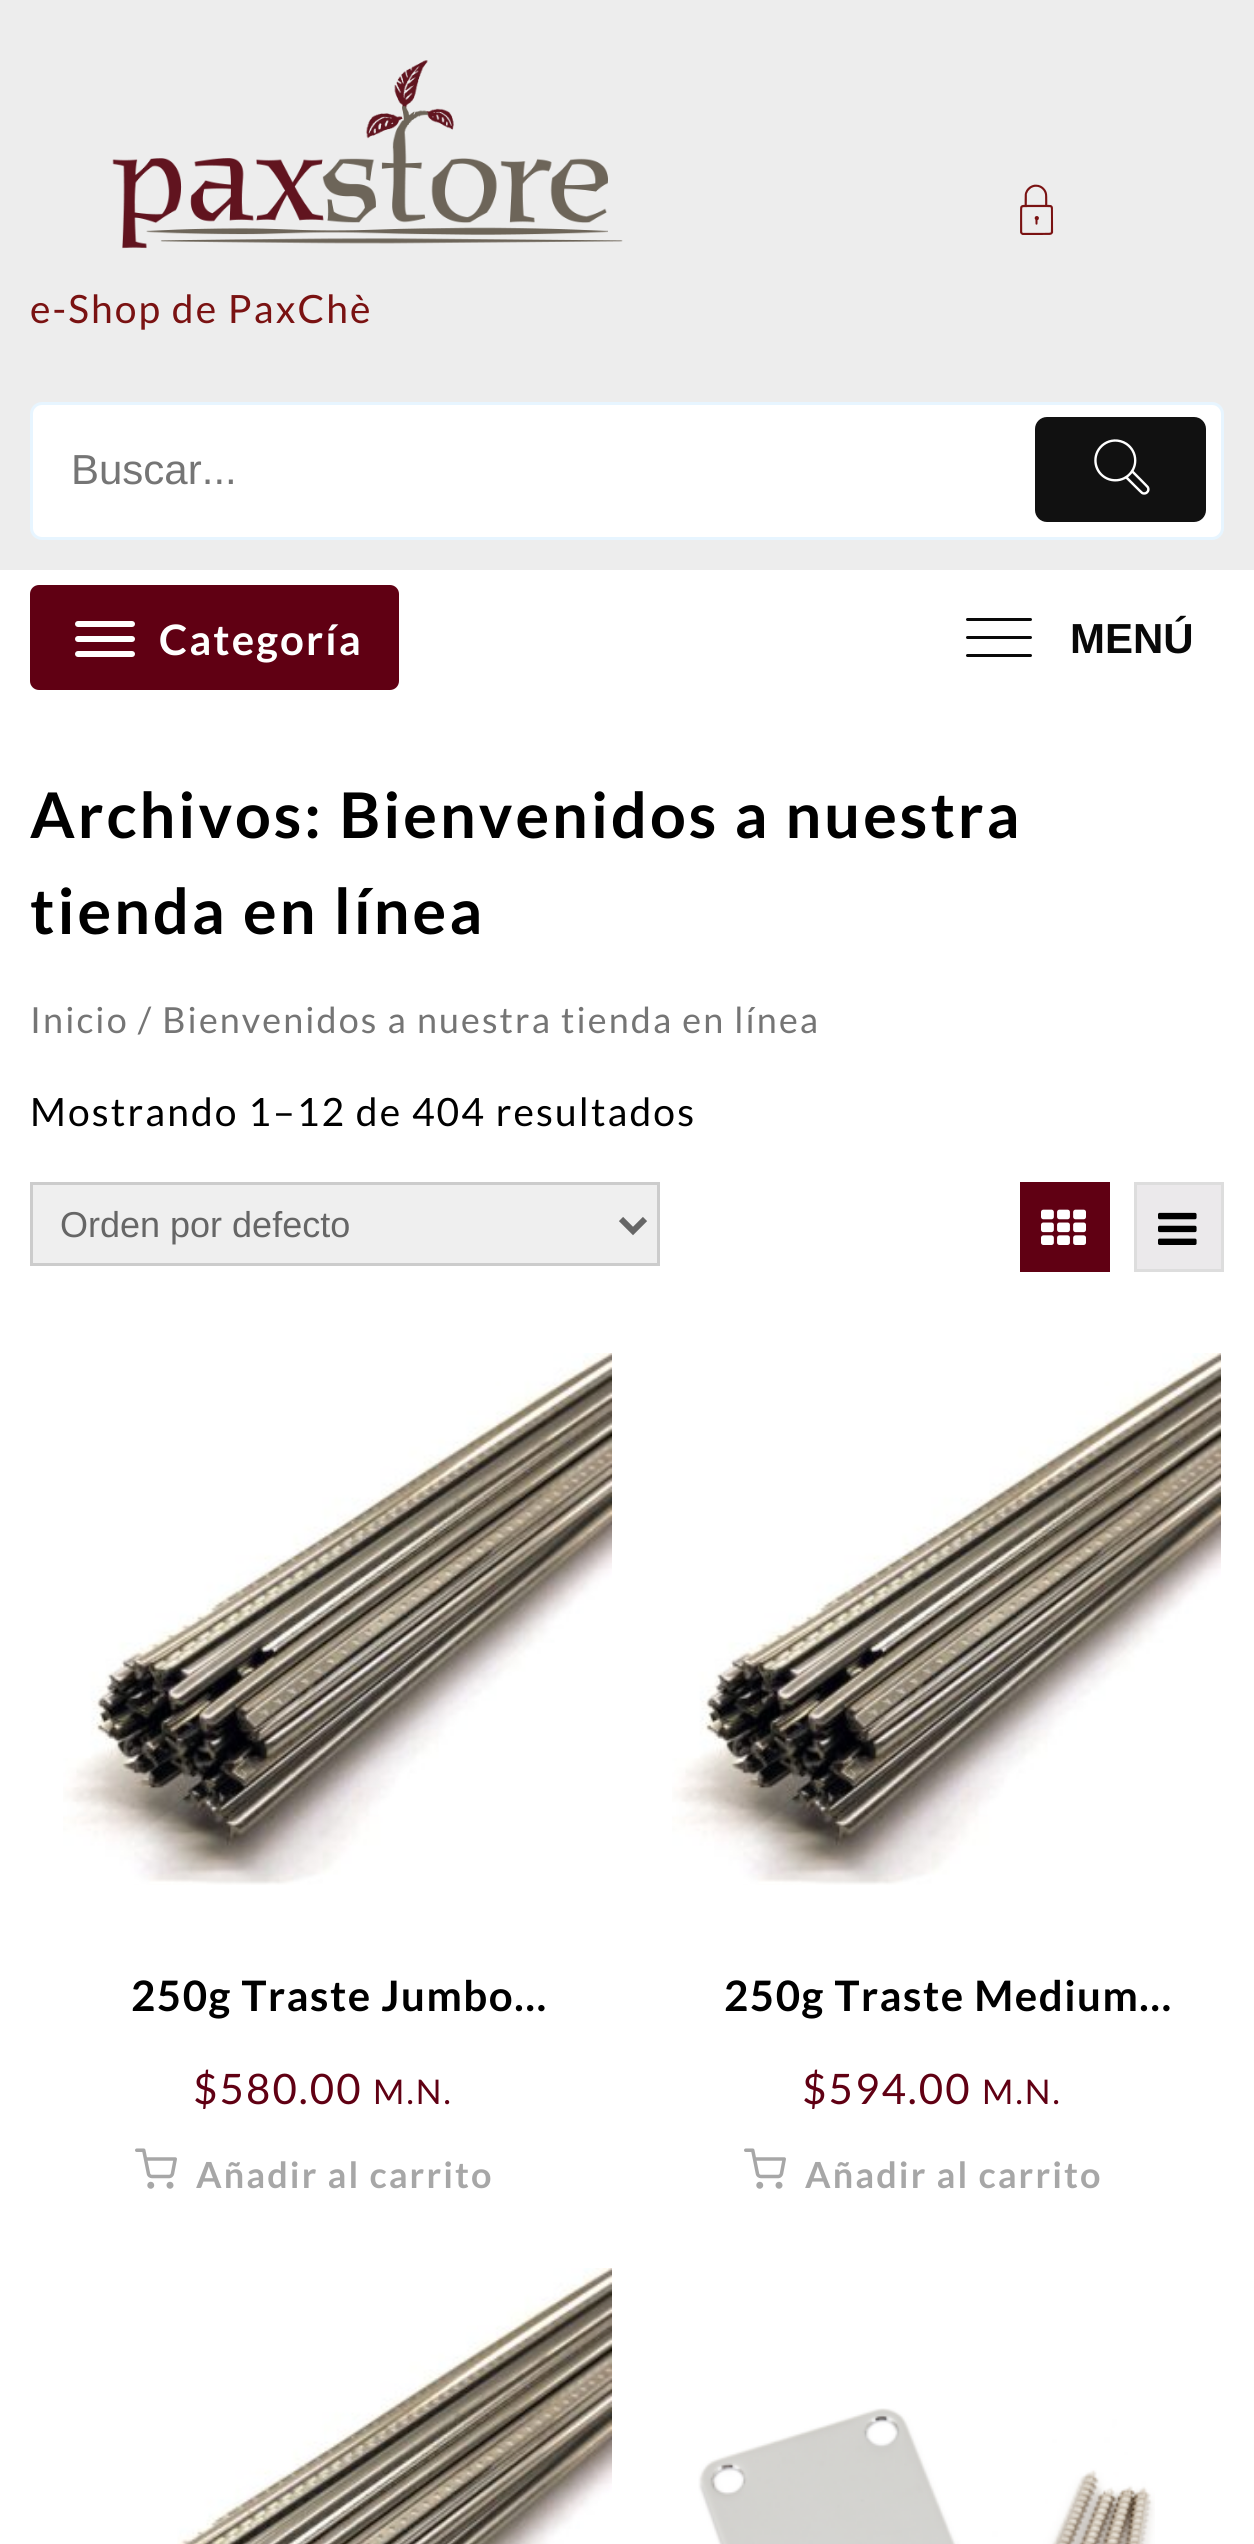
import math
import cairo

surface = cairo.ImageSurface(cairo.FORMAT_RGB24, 1254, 2544)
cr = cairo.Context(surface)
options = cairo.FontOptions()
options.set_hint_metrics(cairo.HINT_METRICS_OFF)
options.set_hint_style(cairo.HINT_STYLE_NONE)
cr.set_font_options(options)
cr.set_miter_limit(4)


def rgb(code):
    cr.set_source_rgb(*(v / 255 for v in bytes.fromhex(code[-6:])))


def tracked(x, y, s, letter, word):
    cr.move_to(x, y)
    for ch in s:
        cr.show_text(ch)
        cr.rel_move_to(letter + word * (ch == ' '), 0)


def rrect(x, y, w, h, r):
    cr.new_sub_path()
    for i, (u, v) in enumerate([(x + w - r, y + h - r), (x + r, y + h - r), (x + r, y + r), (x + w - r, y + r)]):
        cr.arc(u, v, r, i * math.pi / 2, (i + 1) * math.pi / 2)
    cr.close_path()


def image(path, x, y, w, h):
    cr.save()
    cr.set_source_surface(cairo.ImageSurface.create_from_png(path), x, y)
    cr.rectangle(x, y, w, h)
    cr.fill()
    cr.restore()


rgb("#ffffff")
cr.paint()
rgb("#ededed")
cr.rectangle(0, 0, 1254, 570)
cr.fill()
image("img/1.png", 1020, 184, 34, 51)
image("img/2.png", 112, 60, 511, 189)
rgb("#ffffff")
rrect(31.5, 403.5, 1191, 135, 10.5)
cr.fill_preserve()
rgb("#e7f5ff")
cr.set_line_width(3)
cr.stroke()
rgb("#111111")
rrect(1035, 417, 171, 105, 12)
cr.fill()
image("img/3.png", 1094, 439, 56, 56)
rgb("#600013")
rrect(30, 585, 369, 105, 9)
cr.fill()
rgb("#ffffff")
rrect(75, 621, 60, 6, 3)
cr.fill()
rrect(75, 636, 60, 6, 3)
cr.fill()
rrect(75, 651, 60, 6, 3)
cr.fill()
rgb("#090909")
rrect(966, 618, 66, 3, 1.5)
cr.fill()
rrect(966, 636, 66, 3, 1.5)
cr.fill()
rrect(966, 654, 66, 3, 1.5)
cr.fill()
rgb("#efefef")
cr.rectangle(31.5, 1183.5, 627, 81)
cr.fill_preserve()
rgb("#cccccc")
cr.stroke()
cr.new_path()
cr.move_to(621, 1219)
cr.line_to(633, 1231)
cr.line_to(645, 1219)
rgb("#666666")
cr.set_line_width(6)
cr.stroke()
rgb("#600013")
cr.rectangle(1020, 1182, 90, 90)
cr.fill()
image("img/4.png", 1041, 1209, 45, 36)
rgb("#ebe9eb")
cr.rectangle(1135.5, 1183.5, 87, 87)
cr.fill_preserve()
rgb("#dddddd")
cr.set_line_width(3)
cr.stroke()
image("img/5.png", 1158, 1212, 39, 33)
image("img/6.png", 63, 1353, 549, 532)
image("img/7.png", 135, 2148, 42, 41)
image("img/8.png", 672, 1353, 549, 532)
image("img/7.png", 744, 2148, 42, 41)
image("img/9.png", 177, 2268, 435, 276)
image("img/10.png", 698, 2408, 457, 136)
cr.select_font_face("Lato")
cr.set_font_size(39)
rgb("#7a1212")
tracked(30, 323, "e-Shop de PaxChè", 2.1, 0)
cr.select_font_face("Liberation Sans")
cr.set_font_size(42)
rgb("#757575")
cr.move_to(71, 484)
cr.show_text("Buscar...")
cr.select_font_face("Lato", cairo.FONT_SLANT_NORMAL, cairo.FONT_WEIGHT_BOLD)
rgb("#ffffff")
tracked(159, 655, "Categoría", 2.1, 0)
cr.select_font_face("Liberation Sans", cairo.FONT_SLANT_NORMAL, cairo.FONT_WEIGHT_BOLD)
rgb("#090909")
cr.move_to(1070, 653)
cr.show_text("MENÚ")
cr.select_font_face("Lato", cairo.FONT_SLANT_NORMAL, cairo.FONT_WEIGHT_BOLD)
cr.set_font_size(63)
rgb("#000000")
tracked(30, 838, "Archivos: Bienvenidos a nuestra", 3, 0)
tracked(30, 934, "tienda en línea", 3, 0)
cr.select_font_face("Lato")
cr.set_font_size(35.9)
rgb("#757575")
tracked(30, 1033, "Inicio / Bienvenidos a nuestra tienda en línea", 2.1, 0)
cr.set_font_size(39)
rgb("#000000")
tracked(30, 1126, "Mostrando 1–12 de 404 resultados", 2.1, 0)
cr.select_font_face("Liberation Sans")
cr.set_font_size(36)
rgb("#666666")
cr.move_to(60, 1237)
cr.show_text("Orden por defecto")
cr.select_font_face("Lato", cairo.FONT_SLANT_NORMAL, cairo.FONT_WEIGHT_BOLD)
cr.set_font_size(42)
rgb("#000000")
tracked(131, 2011, "250g Traste Jumbo…", 1.5, 0)
cr.select_font_face("Lato")
rgb("#600013")
tracked(193, 2104, "$580.00", 2.1, 0)
cr.set_font_size(34)
tracked(373, 2104, "M.N.", 2.1, 0)
cr.select_font_face("Lato", cairo.FONT_SLANT_NORMAL, cairo.FONT_WEIGHT_BOLD)
cr.set_font_size(36)
rgb("#a7a7a7")
tracked(196, 2188, "Añadir al carrito", 2.1, 0)
cr.set_font_size(42)
rgb("#000000")
tracked(724, 2011, "250g Traste Medium…", 1.5, 0)
cr.select_font_face("Lato")
rgb("#600013")
tracked(802, 2104, "$594.00", 2.1, 0)
cr.set_font_size(34)
tracked(982, 2104, "M.N.", 2.1, 0)
cr.select_font_face("Lato", cairo.FONT_SLANT_NORMAL, cairo.FONT_WEIGHT_BOLD)
cr.set_font_size(36)
rgb("#a7a7a7")
tracked(805, 2188, "Añadir al carrito", 2.1, 0)
surface.write_to_png("page.png")
